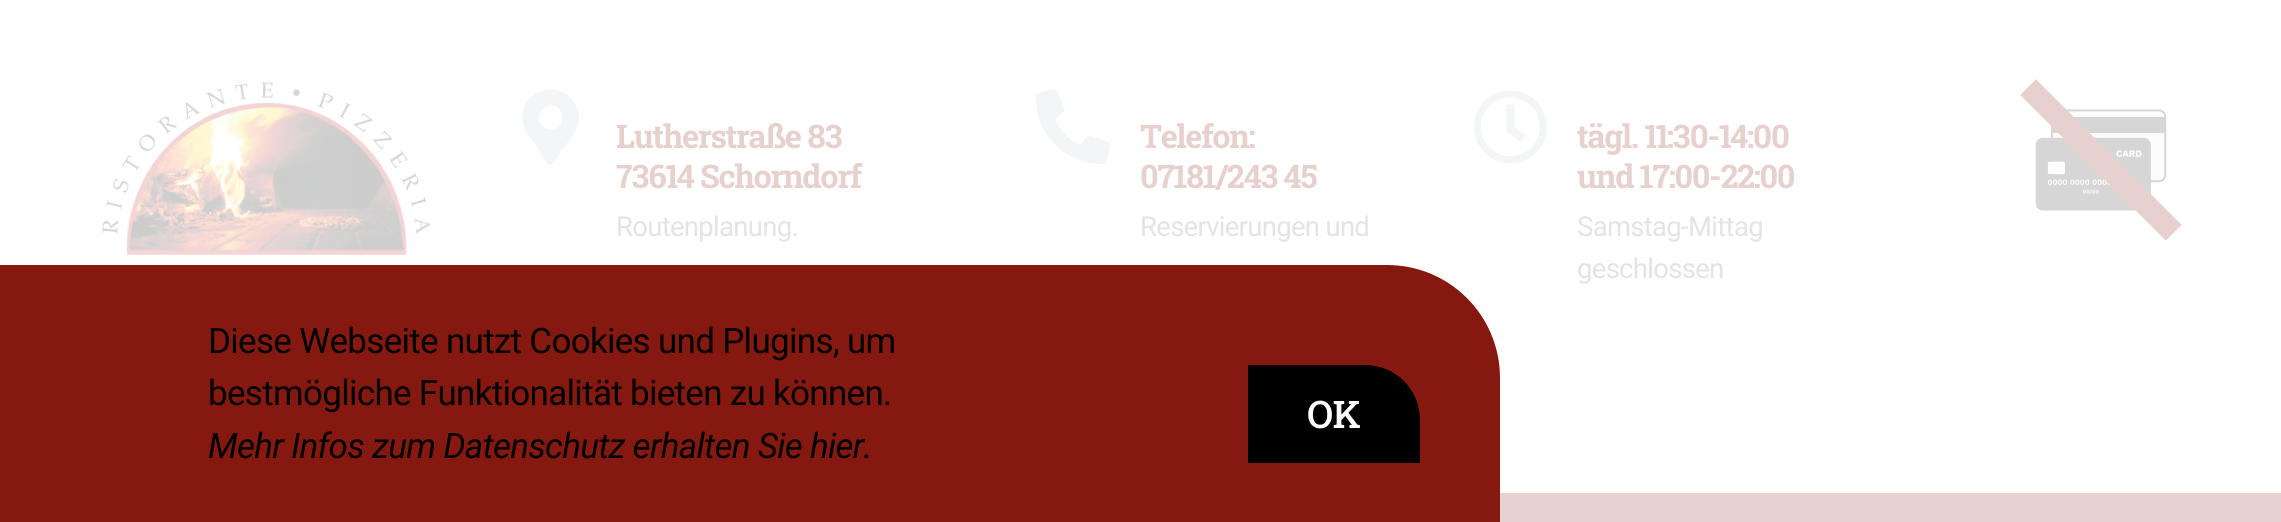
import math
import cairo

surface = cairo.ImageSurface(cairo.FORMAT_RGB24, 2281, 522)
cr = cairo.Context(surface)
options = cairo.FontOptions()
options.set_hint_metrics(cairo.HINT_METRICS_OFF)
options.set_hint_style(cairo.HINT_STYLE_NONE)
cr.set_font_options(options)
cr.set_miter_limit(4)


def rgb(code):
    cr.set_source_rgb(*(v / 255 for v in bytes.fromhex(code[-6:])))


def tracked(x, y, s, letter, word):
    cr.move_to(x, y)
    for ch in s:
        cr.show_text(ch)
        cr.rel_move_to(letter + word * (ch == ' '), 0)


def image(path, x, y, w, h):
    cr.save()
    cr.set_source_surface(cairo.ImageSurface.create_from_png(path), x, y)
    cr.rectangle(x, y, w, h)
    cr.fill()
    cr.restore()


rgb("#ffffff")
cr.paint()
image("img/1.png", 102, 82, 329, 174)
rgb("#f3f5f6")
cr.new_path()
cr.move_to(547, 163)
cr.line_to(536, 146)
cr.curve_to(531, 139, 524, 131, 523, 123)
cr.curve_to(517, 93, 557, 77, 574, 102)
cr.curve_to(587, 121, 572, 137, 561, 151)
cr.curve_to(560, 154, 554, 163, 552, 164)
cr.curve_to(550, 165, 548, 164, 547, 163)
cr.close_path()
cr.move_to(542, 126)
cr.curve_to(553, 137, 569, 120, 559, 109)
cr.curve_to(548, 98, 531, 115, 542, 126)
cr.close_path()
cr.fill()
cr.new_path()
cr.move_to(1108, 142)
cr.curve_to(1110, 143, 1111, 144, 1110, 146)
cr.line_to(1108, 157)
cr.curve_to(1107, 159, 1107, 165, 1103, 164)
cr.line_to(1090, 163)
cr.curve_to(1066, 159, 1045, 140, 1038, 116)
cr.line_to(1036, 103)
cr.curve_to(1035, 92, 1035, 94, 1046, 91)
cr.curve_to(1058, 89, 1055, 87, 1061, 100)
cr.curve_to(1066, 113, 1067, 109, 1055, 119)
cr.curve_to(1060, 131, 1069, 140, 1080, 145)
cr.line_to(1086, 138)
cr.curve_to(1090, 134, 1090, 135, 1094, 137)
cr.close_path()
cr.fill()
image("img/2.png", 1474, 90, 73, 74)
image("img/3.png", 2020, 79, 162, 162)
rgb("#e7d1cf")
cr.rectangle(1500, 493, 781, 29)
cr.fill()
rgb("#86190f")
cr.new_path()
cr.move_to(0, 265)
cr.line_to(1387, 265)
cr.curve_to(1449.5, 265, 1500, 315.5, 1500, 378)
cr.line_to(1500, 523)
cr.line_to(0, 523)
cr.close_path()
cr.fill()
rgb("#000000")
cr.new_path()
cr.move_to(1248, 365)
cr.line_to(1365, 365)
cr.curve_to(1395.5, 365, 1420, 389.5, 1420, 420)
cr.line_to(1420, 463)
cr.line_to(1248, 463)
cr.close_path()
cr.fill()
cr.select_font_face("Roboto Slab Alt", cairo.FONT_SLANT_NORMAL, cairo.FONT_WEIGHT_BOLD)
cr.set_font_size(32.5)
rgb("#e7d1cf")
tracked(616, 148, "Lutherstraße 83", -1.4, 0)
tracked(616, 188, "73614 Schorndorf", -1.4, 0)
cr.select_font_face("Roboto")
cr.set_font_size(27.5)
rgb("#e4e4e4")
tracked(616, 236, "Routenplanung.", -0.7, 0)
cr.select_font_face("Roboto Slab", cairo.FONT_SLANT_NORMAL, cairo.FONT_WEIGHT_BOLD)
cr.set_font_size(32.5)
rgb("#e7d1cf")
tracked(1140, 148, "Telefon:", -1.4, 0)
tracked(1140, 188, "07181/243 45", -1.4, 0)
cr.select_font_face("Roboto")
cr.set_font_size(27.5)
rgb("#e4e4e4")
tracked(1140, 236, "Reservierungen und", -0.7, 0)
cr.select_font_face("Roboto Slab Alt", cairo.FONT_SLANT_NORMAL, cairo.FONT_WEIGHT_BOLD)
cr.set_font_size(32.5)
rgb("#e7d1cf")
tracked(1577, 148, "tägl. 11:30-14:00", -1.4, 0)
cr.select_font_face("Roboto Slab", cairo.FONT_SLANT_NORMAL, cairo.FONT_WEIGHT_BOLD)
tracked(1577, 188, "und 17:00-22:00", -1.4, 0)
cr.select_font_face("Roboto")
cr.set_font_size(27.5)
rgb("#e4e4e4")
tracked(1577, 236, "Samstag-Mittag", -0.7, 0)
tracked(1577, 278, "geschlossen", -0.7, 0)
cr.set_font_size(35)
rgb("#000000")
tracked(208, 353, "Diese Webseite nutzt Cookies und Plugins, um", -0.7, 0)
tracked(208, 405, "bestmögliche Funktionalität bieten zu können.", -0.7, 0)
cr.select_font_face("Roboto", cairo.FONT_SLANT_ITALIC)
tracked(208, 458, "Mehr Infos zum Datenschutz erhalten Sie hier.", -0.7, 0)
cr.select_font_face("Roboto Slab Medium")
cr.set_font_size(38)
rgb("#ffffff")
tracked(1307, 428, "OK", -0.7, 0)
surface.write_to_png("page.png")
